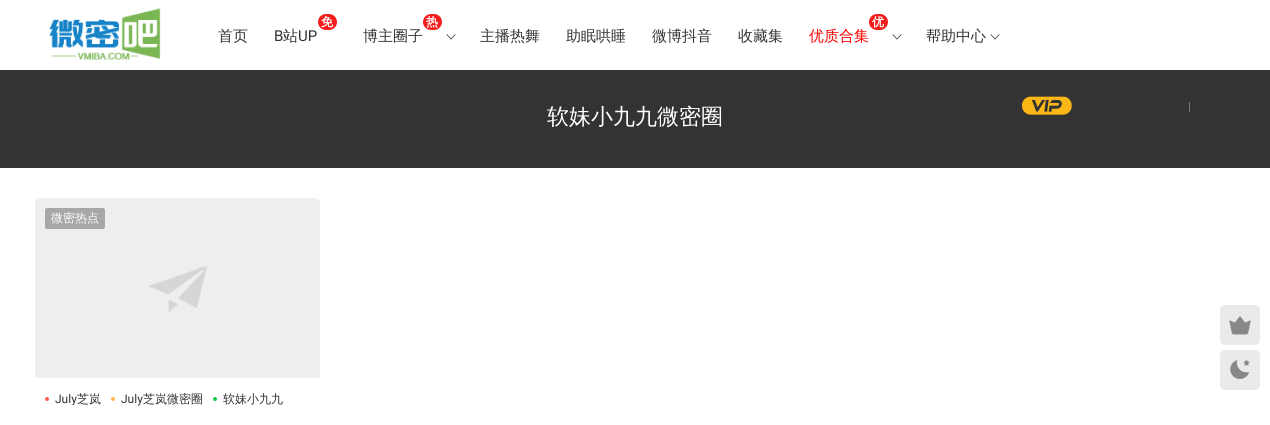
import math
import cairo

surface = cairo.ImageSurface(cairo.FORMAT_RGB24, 1270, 425)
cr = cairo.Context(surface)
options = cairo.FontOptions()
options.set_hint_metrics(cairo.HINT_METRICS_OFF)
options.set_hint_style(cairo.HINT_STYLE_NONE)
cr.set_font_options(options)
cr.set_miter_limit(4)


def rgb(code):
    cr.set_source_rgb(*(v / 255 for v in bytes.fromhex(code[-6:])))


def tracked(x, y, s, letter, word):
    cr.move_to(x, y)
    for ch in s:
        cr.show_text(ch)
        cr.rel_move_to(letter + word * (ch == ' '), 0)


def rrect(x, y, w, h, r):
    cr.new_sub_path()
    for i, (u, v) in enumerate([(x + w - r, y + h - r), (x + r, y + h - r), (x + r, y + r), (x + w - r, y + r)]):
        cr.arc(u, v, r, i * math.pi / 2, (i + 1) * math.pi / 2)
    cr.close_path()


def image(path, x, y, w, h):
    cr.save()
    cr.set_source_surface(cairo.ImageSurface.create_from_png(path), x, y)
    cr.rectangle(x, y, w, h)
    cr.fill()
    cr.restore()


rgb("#ffffff")
cr.paint()
image("img/1.png", 49, 8, 112, 52)
rgb("#f51c1c")
rrect(318, 14, 19, 16, 8)
cr.fill()
rrect(423, 14, 19, 16, 8)
cr.fill()
image("img/2.png", 446, 34, 10, 6)
rrect(869, 14, 19, 16, 8)
cr.fill()
image("img/2.png", 892, 34, 10, 6)
image("img/2.png", 990, 34, 10, 6)
rgb("#333333")
cr.rectangle(0, 70, 1270, 98)
cr.fill()
image("img/3.png", 1022, 96, 50, 19)
rgb("#777777")
cr.rectangle(1189, 102, 1, 10)
cr.fill()
image("img/4.png", 35, 198, 285, 180)
rgb("#a7a7a7")
rrect(45, 208, 60, 21, 2)
cr.fill()
rgb("#ff5e5c")
cr.arc(47, 399, 2, 0, 2 * math.pi)
cr.fill()
rgb("#ffbb50")
cr.arc(113, 399, 2, 0, 2 * math.pi)
cr.fill()
rgb("#1ac756")
cr.arc(215, 399, 2, 0, 2 * math.pi)
cr.fill()
rgb("#e9eaea")
rrect(1220, 305, 40, 40, 5)
cr.fill()
image("img/5.png", 1229, 316, 22, 19)
rrect(1220, 350, 40, 40, 5)
cr.fill()
image("img/6.png", 1230, 359, 20, 20)
cr.select_font_face("WenQuanYi Zen Hei Medium")
cr.set_font_size(15)
rgb("#333333")
cr.move_to(218, 41)
cr.show_text("首页")
cr.select_font_face("WenQuanYi Zen Hei", cairo.FONT_SLANT_NORMAL, cairo.FONT_WEIGHT_BOLD)
cr.set_font_size(12)
rgb("#ffffff")
tracked(321, 26, "免", 1, 0)
cr.select_font_face("Roboto")
cr.set_font_size(15)
rgb("#333333")
cr.move_to(274, 41)
cr.show_text("B")
cr.select_font_face("WenQuanYi Zen Hei Medium")
cr.move_to(283, 41)
cr.show_text("站")
cr.select_font_face("Roboto")
cr.move_to(298, 41)
cr.show_text("UP")
cr.select_font_face("WenQuanYi Zen Hei", cairo.FONT_SLANT_NORMAL, cairo.FONT_WEIGHT_BOLD)
cr.set_font_size(12)
rgb("#ffffff")
tracked(426, 26, "热", 1, 0)
cr.select_font_face("WenQuanYi Zen Hei Medium")
cr.set_font_size(15)
rgb("#333333")
for x, y, s in [
    (363, 41, "博主圈子"),
    (480, 41, "主播热舞"),
    (566, 41, "助眠哄睡"),
    (652, 41, "微博抖音"),
    (738, 41, "收藏集"),
]:
    cr.move_to(x, y)
    cr.show_text(s)
cr.select_font_face("WenQuanYi Zen Hei", cairo.FONT_SLANT_NORMAL, cairo.FONT_WEIGHT_BOLD)
cr.set_font_size(12)
rgb("#ffffff")
tracked(872, 26, "优", 1, 0)
cr.select_font_face("WenQuanYi Zen Hei Medium")
cr.set_font_size(15)
rgb("#ff0000")
cr.move_to(809, 41)
cr.show_text("优质合集")
rgb("#333333")
cr.move_to(926, 41)
cr.show_text("帮助中心")
cr.set_font_size(22)
rgb("#ffffff")
cr.move_to(547, 124)
cr.show_text("软妹小九九微密圈")
cr.set_font_size(12)
cr.move_to(51, 222)
cr.show_text("微密热点")
cr.save()
cr.rectangle(35, 378, 285, 27)
cr.clip()
cr.select_font_face("Roboto")
rgb("#333333")
cr.move_to(55, 403)
cr.show_text("July")
cr.restore()
rgb("#333333")
cr.move_to(77, 403)
cr.show_text("芝岚")
cr.select_font_face("Roboto")
cr.move_to(121, 403)
cr.show_text("July")
cr.select_font_face("WenQuanYi Zen Hei Medium")
cr.move_to(143, 403)
cr.show_text("芝岚微密圈")
cr.move_to(223, 403)
cr.show_text("软妹小九九")
surface.write_to_png("page.png")
